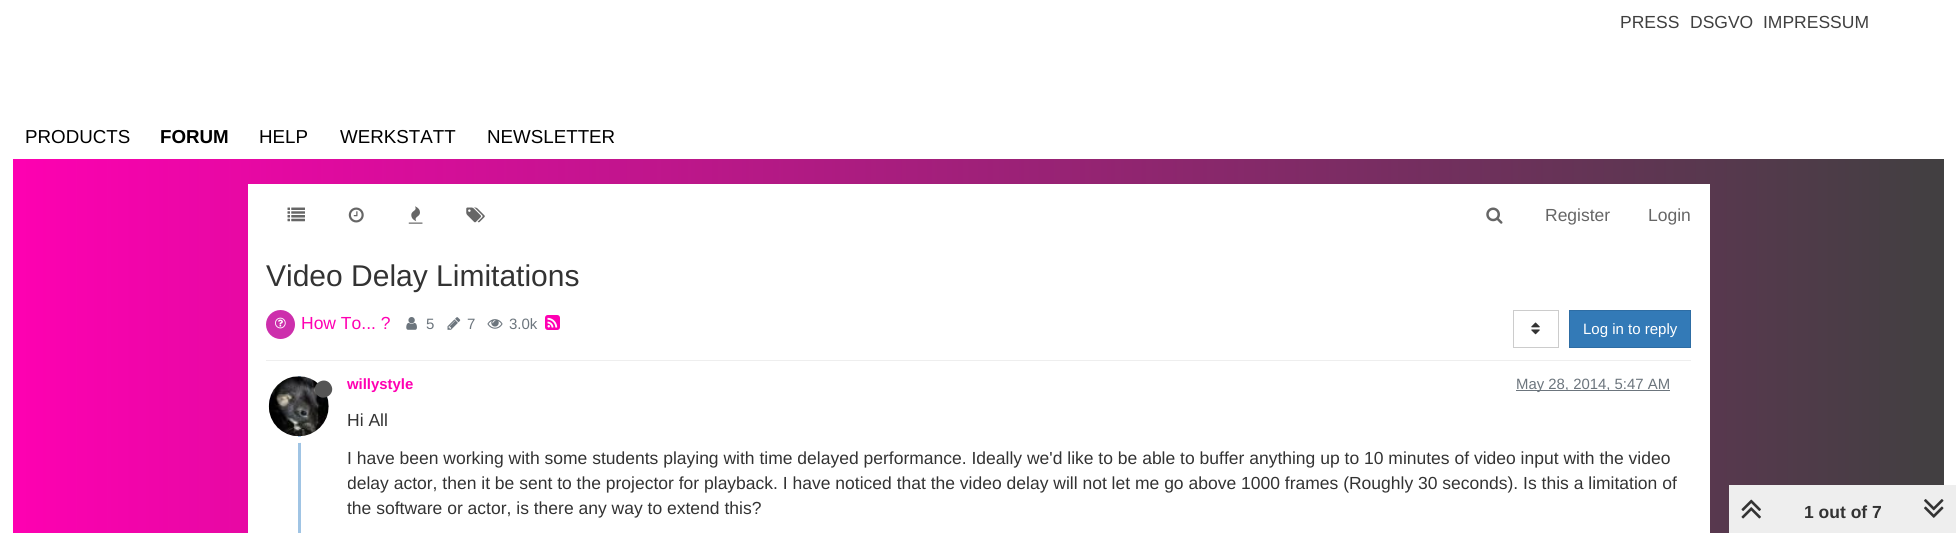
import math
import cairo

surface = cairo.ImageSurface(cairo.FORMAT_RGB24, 1956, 533)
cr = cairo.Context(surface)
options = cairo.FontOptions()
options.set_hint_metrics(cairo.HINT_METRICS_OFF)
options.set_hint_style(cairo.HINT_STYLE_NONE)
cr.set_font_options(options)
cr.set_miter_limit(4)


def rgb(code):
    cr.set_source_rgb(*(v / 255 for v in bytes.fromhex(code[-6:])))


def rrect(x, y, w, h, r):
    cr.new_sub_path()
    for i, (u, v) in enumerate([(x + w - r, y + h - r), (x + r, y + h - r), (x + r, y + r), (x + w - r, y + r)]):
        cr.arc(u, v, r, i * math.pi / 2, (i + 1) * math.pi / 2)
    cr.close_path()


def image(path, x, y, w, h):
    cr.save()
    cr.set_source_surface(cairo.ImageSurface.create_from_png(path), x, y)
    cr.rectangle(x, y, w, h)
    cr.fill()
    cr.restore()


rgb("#ffffff")
cr.paint()
gradient = cairo.LinearGradient(0, 267, 1956, 267)
gradient.add_color_stop_rgba(0, 1, 0, 0.698, 1)
gradient.add_color_stop_rgba(1, 0.251, 0.251, 0.251, 1)
cr.set_source(gradient)
cr.rectangle(13, 159, 1931, 374)
cr.fill()
rgb("#ffffff")
cr.rectangle(248, 184, 1462, 349)
cr.fill()
image("img/1.png", 287, 207, 18, 15)
image("img/2.png", 348, 207, 16, 16)
image("img/3.png", 408, 206, 15, 18)
image("img/4.png", 466, 207, 19, 16)
image("img/5.png", 1486, 207, 17, 17)
rgb("#eeeeee")
cr.rectangle(266, 360, 1425, 1)
cr.fill()
rgb("#cd2fac")
cr.arc(280.5, 324.5, 14.5, 0, 2 * math.pi)
cr.fill()
image("img/6.png", 275, 317, 11, 12)
image("img/7.png", 406, 317, 11, 13)
image("img/8.png", 447, 317, 14, 13)
image("img/9.png", 487, 319, 16, 10)
image("img/10.png", 545, 315, 15, 15)
cr.rectangle(1513.5, 310.5, 45, 37)
rgb("#cccccc")
cr.set_line_width(1)
cr.stroke()
image("img/11.png", 1531, 322, 9, 13)
rgb("#337ab7")
cr.rectangle(1569.5, 310.5, 121, 37)
cr.fill_preserve()
rgb("#2e6da4")
cr.stroke()
rgb("#a0c4e4")
cr.rectangle(298, 374, 3, 159)
cr.fill()
rrect(266, 373, 66, 67, 33)
rgb("#ffffff")
cr.set_line_width(6)
cr.stroke()
image("img/12.png", 268, 376, 61, 61)
rgb("#555555")
cr.new_path()
cr.move_to(331, 385)
cr.curve_to(336.5, 394.5, 322, 403, 316, 393.5)
cr.curve_to(310.5, 383.5, 325.5, 375, 331, 385)
cr.close_path()
cr.fill()
rgb("#6c757d")
cr.rectangle(1516, 390, 154, 1)
cr.fill()
rgb("#eeeeee")
cr.rectangle(1729, 485, 227, 48)
cr.fill()
image("img/13.png", 1741, 499, 20, 20)
image("img/14.png", 1924, 499, 20, 19)
cr.select_font_face("Liberation Sans")
cr.set_font_size(17.5)
rgb("#404040")
for x, y, s in [
    (1620, 28, "PRESS"),
    (1690, 28, "DSGVO"),
    (1763, 28, "IMPRESSUM"),
]:
    cr.move_to(x, y)
    cr.show_text(s)
cr.set_font_size(18.75)
rgb("#000000")
cr.move_to(25, 143)
cr.show_text("PRODUCTS")
cr.select_font_face("Liberation Sans", cairo.FONT_SLANT_NORMAL, cairo.FONT_WEIGHT_BOLD)
cr.move_to(160, 143)
cr.show_text("FORUM")
cr.select_font_face("Liberation Sans")
for x, y, s in [
    (259, 143, "HELP"),
    (340, 143, "WERKSTATT"),
    (487, 143, "NEWSLETTER"),
]:
    cr.move_to(x, y)
    cr.show_text(s)
cr.set_font_size(17.5)
rgb("#666666")
cr.move_to(1545, 221)
cr.show_text("Register")
cr.move_to(1648, 221)
cr.show_text("Login")
cr.set_font_size(30)
rgb("#333333")
cr.move_to(266, 286)
cr.show_text("Video Delay Limitations")
cr.set_font_size(17.5)
rgb("#ff00b2")
cr.move_to(301, 329)
cr.show_text("How To... ?")
cr.set_font_size(15)
rgb("#6c757d")
for x, y, s in [
    (426, 329, "5"),
    (467, 329, "7"),
    (509, 329, "3.0k"),
]:
    cr.move_to(x, y)
    cr.show_text(s)
rgb("#ffffff")
cr.move_to(1583, 334)
cr.show_text("Log in to reply")
cr.select_font_face("Liberation Sans", cairo.FONT_SLANT_NORMAL, cairo.FONT_WEIGHT_BOLD)
cr.set_font_size(14.9)
rgb("#ff00b2")
cr.move_to(347, 389)
cr.show_text("willystyle")
cr.select_font_face("Liberation Sans")
rgb("#6c757d")
cr.move_to(1516, 389)
cr.show_text("May 28, 2014, 5:47 AM")
cr.set_font_size(17.5)
rgb("#333333")
cr.move_to(347, 426)
cr.show_text("Hi All")
cr.move_to(347, 464)
cr.show_text("I have been working with some students playing with time delayed performance. Ideally we'd like to be able to buffer anything up to 10 minutes of video input with the video")
cr.save()
cr.rectangle(348, 408, 1343, 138)
cr.clip()
cr.move_to(347, 489)
cr.show_text("delay actor, then it be sent to the projector for playback. I have noticed that the video delay will not let me go above 1000 frames (Roughly 30 seconds). Is this a limitation of")
cr.restore()
cr.move_to(347, 514)
cr.show_text("the software or actor, is there any way to extend this?")
cr.select_font_face("Liberation Sans", cairo.FONT_SLANT_NORMAL, cairo.FONT_WEIGHT_BOLD)
cr.move_to(1804, 518)
cr.show_text("1 out of 7")
surface.write_to_png("page.png")
